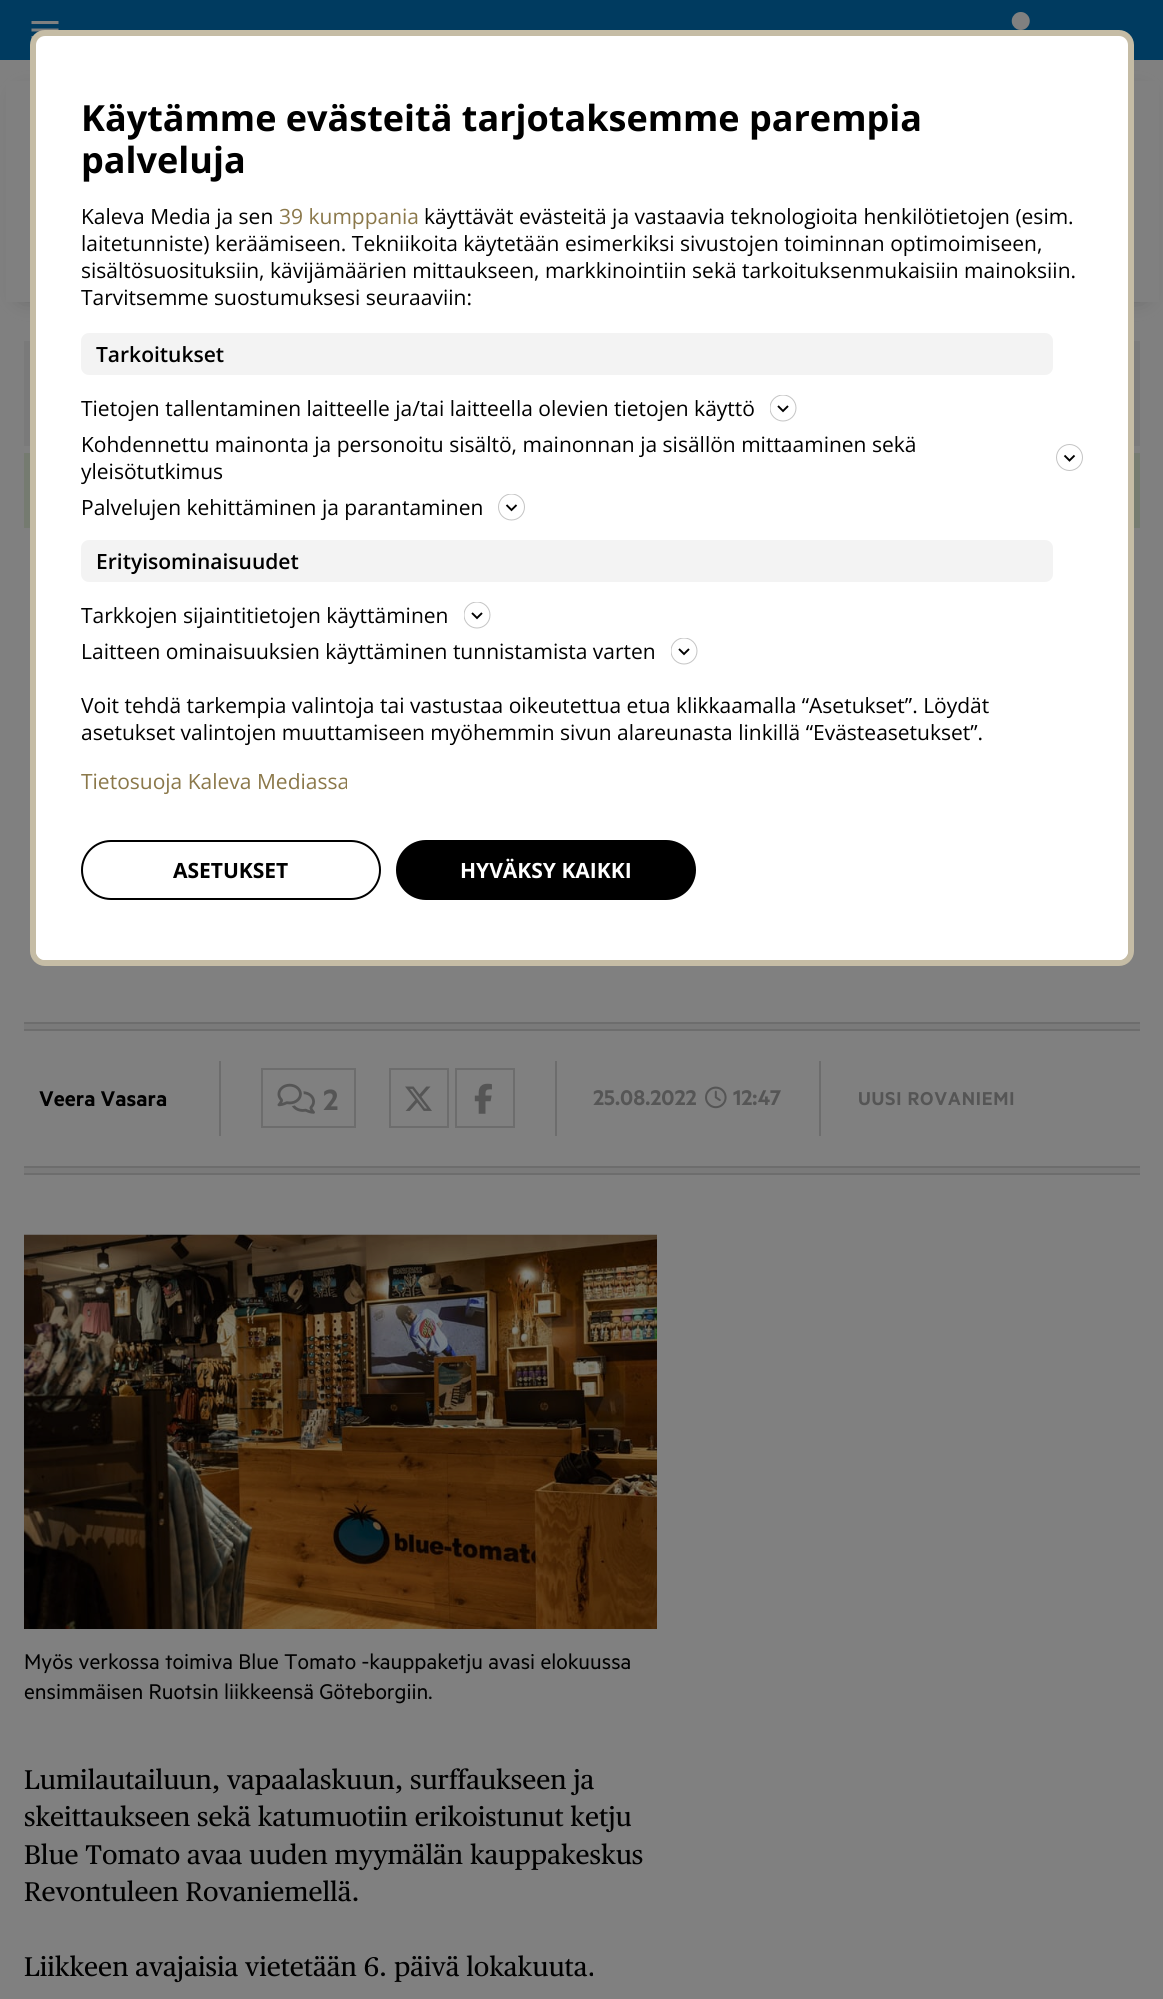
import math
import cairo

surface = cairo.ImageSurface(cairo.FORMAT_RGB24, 1163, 1999)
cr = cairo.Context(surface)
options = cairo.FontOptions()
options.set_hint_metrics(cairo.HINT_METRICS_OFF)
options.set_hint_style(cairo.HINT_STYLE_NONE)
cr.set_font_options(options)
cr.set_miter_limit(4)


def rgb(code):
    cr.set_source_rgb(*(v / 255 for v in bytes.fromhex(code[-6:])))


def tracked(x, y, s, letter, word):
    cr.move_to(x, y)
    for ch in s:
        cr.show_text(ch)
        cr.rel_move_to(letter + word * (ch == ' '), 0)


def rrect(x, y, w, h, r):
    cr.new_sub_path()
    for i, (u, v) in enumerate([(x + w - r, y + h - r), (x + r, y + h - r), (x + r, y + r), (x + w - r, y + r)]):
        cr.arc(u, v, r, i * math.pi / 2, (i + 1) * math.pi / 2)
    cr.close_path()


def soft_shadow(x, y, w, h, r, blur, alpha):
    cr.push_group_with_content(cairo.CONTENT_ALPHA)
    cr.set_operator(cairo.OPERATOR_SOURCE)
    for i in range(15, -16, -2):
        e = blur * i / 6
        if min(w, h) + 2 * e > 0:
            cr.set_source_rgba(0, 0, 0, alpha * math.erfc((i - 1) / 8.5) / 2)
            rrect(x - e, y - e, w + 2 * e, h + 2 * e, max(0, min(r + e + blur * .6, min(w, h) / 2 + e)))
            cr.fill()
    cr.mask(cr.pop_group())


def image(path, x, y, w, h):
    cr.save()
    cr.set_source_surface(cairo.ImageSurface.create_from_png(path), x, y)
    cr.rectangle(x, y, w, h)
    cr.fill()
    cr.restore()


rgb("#808080")
cr.paint()
rgb("#003b60")
cr.rectangle(0, 0, 1163, 60)
cr.fill()
image("img/1.png", 31, 21, 28, 18)
image("img/2.png", 1011, 12, 19, 18)
rgb("#555555")
soft_shadow(23, 98, 1119, 196, 0, 11, 1)
for x, y, w, h, color in [
    (6, 81, 1153, 221, "#808080"),
    (24, 341, 1116, 105, "#7a7a7a"),
    (24, 453, 1116, 75, "#757b70"),
]:
    rgb(color)
    cr.rectangle(x, y, w, h)
    cr.fill()
rgb("#ffffff")
rrect(33, 33, 1098, 930, 12)
cr.fill_preserve()
rgb("#c5bca5")
cr.set_line_width(6)
cr.stroke()
rgb("#f3f3f3")
rrect(81, 333, 972, 42, 8)
cr.fill()
cr.new_path()
cr.move_to(778, 406)
cr.line_to(783, 411)
cr.line_to(788, 406)
rgb("#000000")
cr.set_line_width(1.9)
cr.stroke()
cr.save()
cr.rectangle(770, 395, 27, 27)
cr.clip()
cr.arc(783, 408, 13, 0, 2 * math.pi)
rgb("#c4c4c4")
cr.set_line_width(1)
cr.stroke()
cr.restore()
cr.new_path()
cr.move_to(1064.5, 455.5)
cr.line_to(1069.5, 460.5)
cr.line_to(1074.5, 455.5)
cr.stroke()
cr.arc(1069.5, 457.5, 13, 0, 2 * math.pi)
rgb("#c4c4c4")
cr.set_line_width(1)
cr.stroke()
cr.new_path()
cr.move_to(506.5, 505)
cr.line_to(511.5, 510)
cr.line_to(516.5, 505)
rgb("#000000")
cr.set_line_width(1.9)
cr.stroke()
cr.save()
cr.rectangle(498, 494, 27, 27)
cr.clip()
cr.arc(511.5, 507, 13, 0, 2 * math.pi)
rgb("#c4c4c4")
cr.set_line_width(1)
cr.stroke()
cr.restore()
rgb("#f3f3f3")
rrect(81, 540, 972, 42, 8)
cr.fill()
cr.new_path()
cr.move_to(472, 613)
cr.line_to(477, 618)
cr.line_to(482, 613)
rgb("#000000")
cr.stroke()
cr.save()
cr.rectangle(464, 602, 27, 27)
cr.clip()
cr.arc(477, 615, 13, 0, 2 * math.pi)
rgb("#c4c4c4")
cr.set_line_width(1)
cr.stroke()
cr.restore()
cr.new_path()
cr.move_to(679, 649)
cr.line_to(684, 654)
cr.line_to(689, 649)
cr.stroke()
cr.save()
cr.rectangle(671, 638, 27, 27)
cr.clip()
cr.arc(684, 651, 13, 0, 2 * math.pi)
rgb("#c4c4c4")
cr.set_line_width(1)
cr.stroke()
cr.restore()
gradient = cairo.LinearGradient(582, 810, 582, 960)
gradient.add_color_stop_rgba(0, 1, 1, 1, 0)
gradient.add_color_stop_rgba(0.1, 1, 1, 1, 1)
cr.set_source(gradient)
cr.new_path()
cr.move_to(36, 810)
cr.line_to(1128, 810)
cr.line_to(1128, 951)
cr.curve_to(1128, 956, 1124, 960, 1119, 960)
cr.line_to(45, 960)
cr.curve_to(40, 960, 36, 956, 36, 951)
cr.close_path()
cr.fill()
rrect(82, 841, 298, 58, 29)
rgb("#000000")
cr.set_line_width(2)
cr.stroke()
rrect(397, 841, 298, 58, 29)
cr.fill_preserve()
cr.stroke()
for x, y, w, h, color in [
    (24, 1024, 1116, 5, "#7a7a7a"),
    (24, 1022, 1116, 2, "#6d6d6d"),
    (24, 1029, 1116, 2, "#6d6d6d"),
    (219, 1061, 2, 75, "#6d6d6d"),
]:
    rgb(color)
    cr.rectangle(x, y, w, h)
    cr.fill()
cr.rectangle(262, 1069, 93, 58)
cr.stroke()
image("img/3.png", 277, 1083, 38, 31)
cr.rectangle(390, 1069, 58, 58)
cr.stroke()
image("img/4.png", 405, 1086, 27, 25)
cr.rectangle(456, 1069, 58, 58)
cr.stroke()
image("img/5.png", 474, 1083, 18, 31)
cr.rectangle(555, 1061, 2, 75)
cr.fill()
image("img/6.png", 705, 1086, 22, 23)
for x, y, w, h, color in [
    (819, 1061, 2, 75, "#6d6d6d"),
    (24, 1168, 1116, 5, "#7a7a7a"),
    (24, 1166, 1116, 2, "#6d6d6d"),
    (24, 1173, 1116, 2, "#6d6d6d"),
]:
    rgb(color)
    cr.rectangle(x, y, w, h)
    cr.fill()
image("img/7.png", 24, 1234, 633, 395)
cr.select_font_face("Open Sans", cairo.FONT_SLANT_NORMAL, cairo.FONT_WEIGHT_BOLD)
cr.set_font_size(36)
rgb("#000000")
cr.move_to(81, 131)
cr.show_text("Käytämme evästeitä tarjotaksemme parempia")
cr.move_to(81, 173)
cr.show_text("palveluja")
cr.select_font_face("Open Sans")
cr.set_font_size(21)
cr.move_to(81, 224)
cr.show_text("Kaleva Media ja sen")
rgb("#8b784a")
cr.move_to(279, 224)
cr.show_text("39 kumppania")
rgb("#000000")
for x, y, s in [
    (424, 224, "käyttävät evästeitä ja vastaavia teknologioita henkilötietojen (esim."),
    (81, 251, "laitetunniste) keräämiseen. Tekniikoita käytetään esimerkiksi sivustojen toiminnan optimoimiseen,"),
    (81, 278, "sisältösuosituksiin, kävijämäärien mittaukseen, markkinointiin sekä tarkoituksenmukaisiin mainoksiin."),
    (81, 305, "Tarvitsemme suostumuksesi seuraaviin:"),
]:
    cr.move_to(x, y)
    cr.show_text(s)
cr.select_font_face("Open Sans SemiBold")
cr.move_to(96, 362)
cr.show_text("Tarkoitukset")
cr.select_font_face("Open Sans")
for x, y, s in [
    (81, 416, "Tietojen tallentaminen laitteelle ja/tai laitteella olevien tietojen käyttö"),
    (81, 452, "Kohdennettu mainonta ja personoitu sisältö, mainonnan ja sisällön mittaaminen sekä"),
    (81, 479, "yleisötutkimus"),
    (81, 515, "Palvelujen kehittäminen ja parantaminen"),
]:
    cr.move_to(x, y)
    cr.show_text(s)
cr.select_font_face("Open Sans SemiBold")
cr.move_to(96, 569)
cr.show_text("Erityisominaisuudet")
cr.select_font_face("Open Sans")
for x, y, s in [
    (81, 623, "Tarkkojen sijaintitietojen käyttäminen"),
    (81, 659, "Laitteen ominaisuuksien käyttäminen tunnistamista varten"),
    (81, 713, "Voit tehdä tarkempia valintoja tai vastustaa oikeutettua etua klikkaamalla “Asetukset”. Löydät"),
    (81, 740, "asetukset valintojen muuttamiseen myöhemmin sivun alareunasta linkillä “Evästeasetukset”."),
]:
    cr.move_to(x, y)
    cr.show_text(s)
rgb("#8b784a")
cr.move_to(81, 789)
cr.show_text("Tietosuoja Kaleva Mediassa")
cr.select_font_face("Open Sans", cairo.FONT_SLANT_NORMAL, cairo.FONT_WEIGHT_BOLD)
rgb("#000000")
cr.move_to(173, 878)
cr.show_text("ASETUKSET")
rgb("#ffffff")
cr.move_to(460, 878)
cr.show_text("HYVÄKSY KAIKKI")
cr.select_font_face("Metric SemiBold")
cr.set_font_size(24)
rgb("#000000")
cr.move_to(39, 1106)
cr.show_text("Veera Vasara")
cr.set_font_size(33)
rgb("#555555")
cr.move_to(323, 1110)
cr.show_text("2")
cr.set_font_size(24)
cr.move_to(593, 1105)
cr.show_text("25.08.2022")
cr.move_to(733, 1105)
cr.show_text("12:47")
cr.set_font_size(21)
tracked(858, 1105, "UUSI ROVANIEMI", 0.75, 0)
cr.select_font_face("Metric")
cr.set_font_size(24)
rgb("#000000")
cr.move_to(24, 1669)
cr.show_text("Myös verkossa toimiva Blue Tomato -kauppaketju avasi elokuussa")
cr.move_to(24, 1699)
cr.show_text("ensimmäisen Ruotsin liikkeensä Göteborgiin.")
cr.select_font_face("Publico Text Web")
cr.set_font_size(27)
for x, y, s in [
    (24, 1789, "Lumilautailuun, vapaalaskuun, surffaukseen ja"),
    (24, 1826, "skeittaukseen sekä katumuotiin erikoistunut ketju"),
    (24, 1864, "Blue Tomato avaa uuden myymälän kauppakeskus"),
    (24, 1901, "Revontuleen Rovaniemellä."),
    (24, 1976, "Liikkeen avajaisia vietetään 6. päivä lokakuuta."),
]:
    cr.move_to(x, y)
    cr.show_text(s)
surface.write_to_png("page.png")
